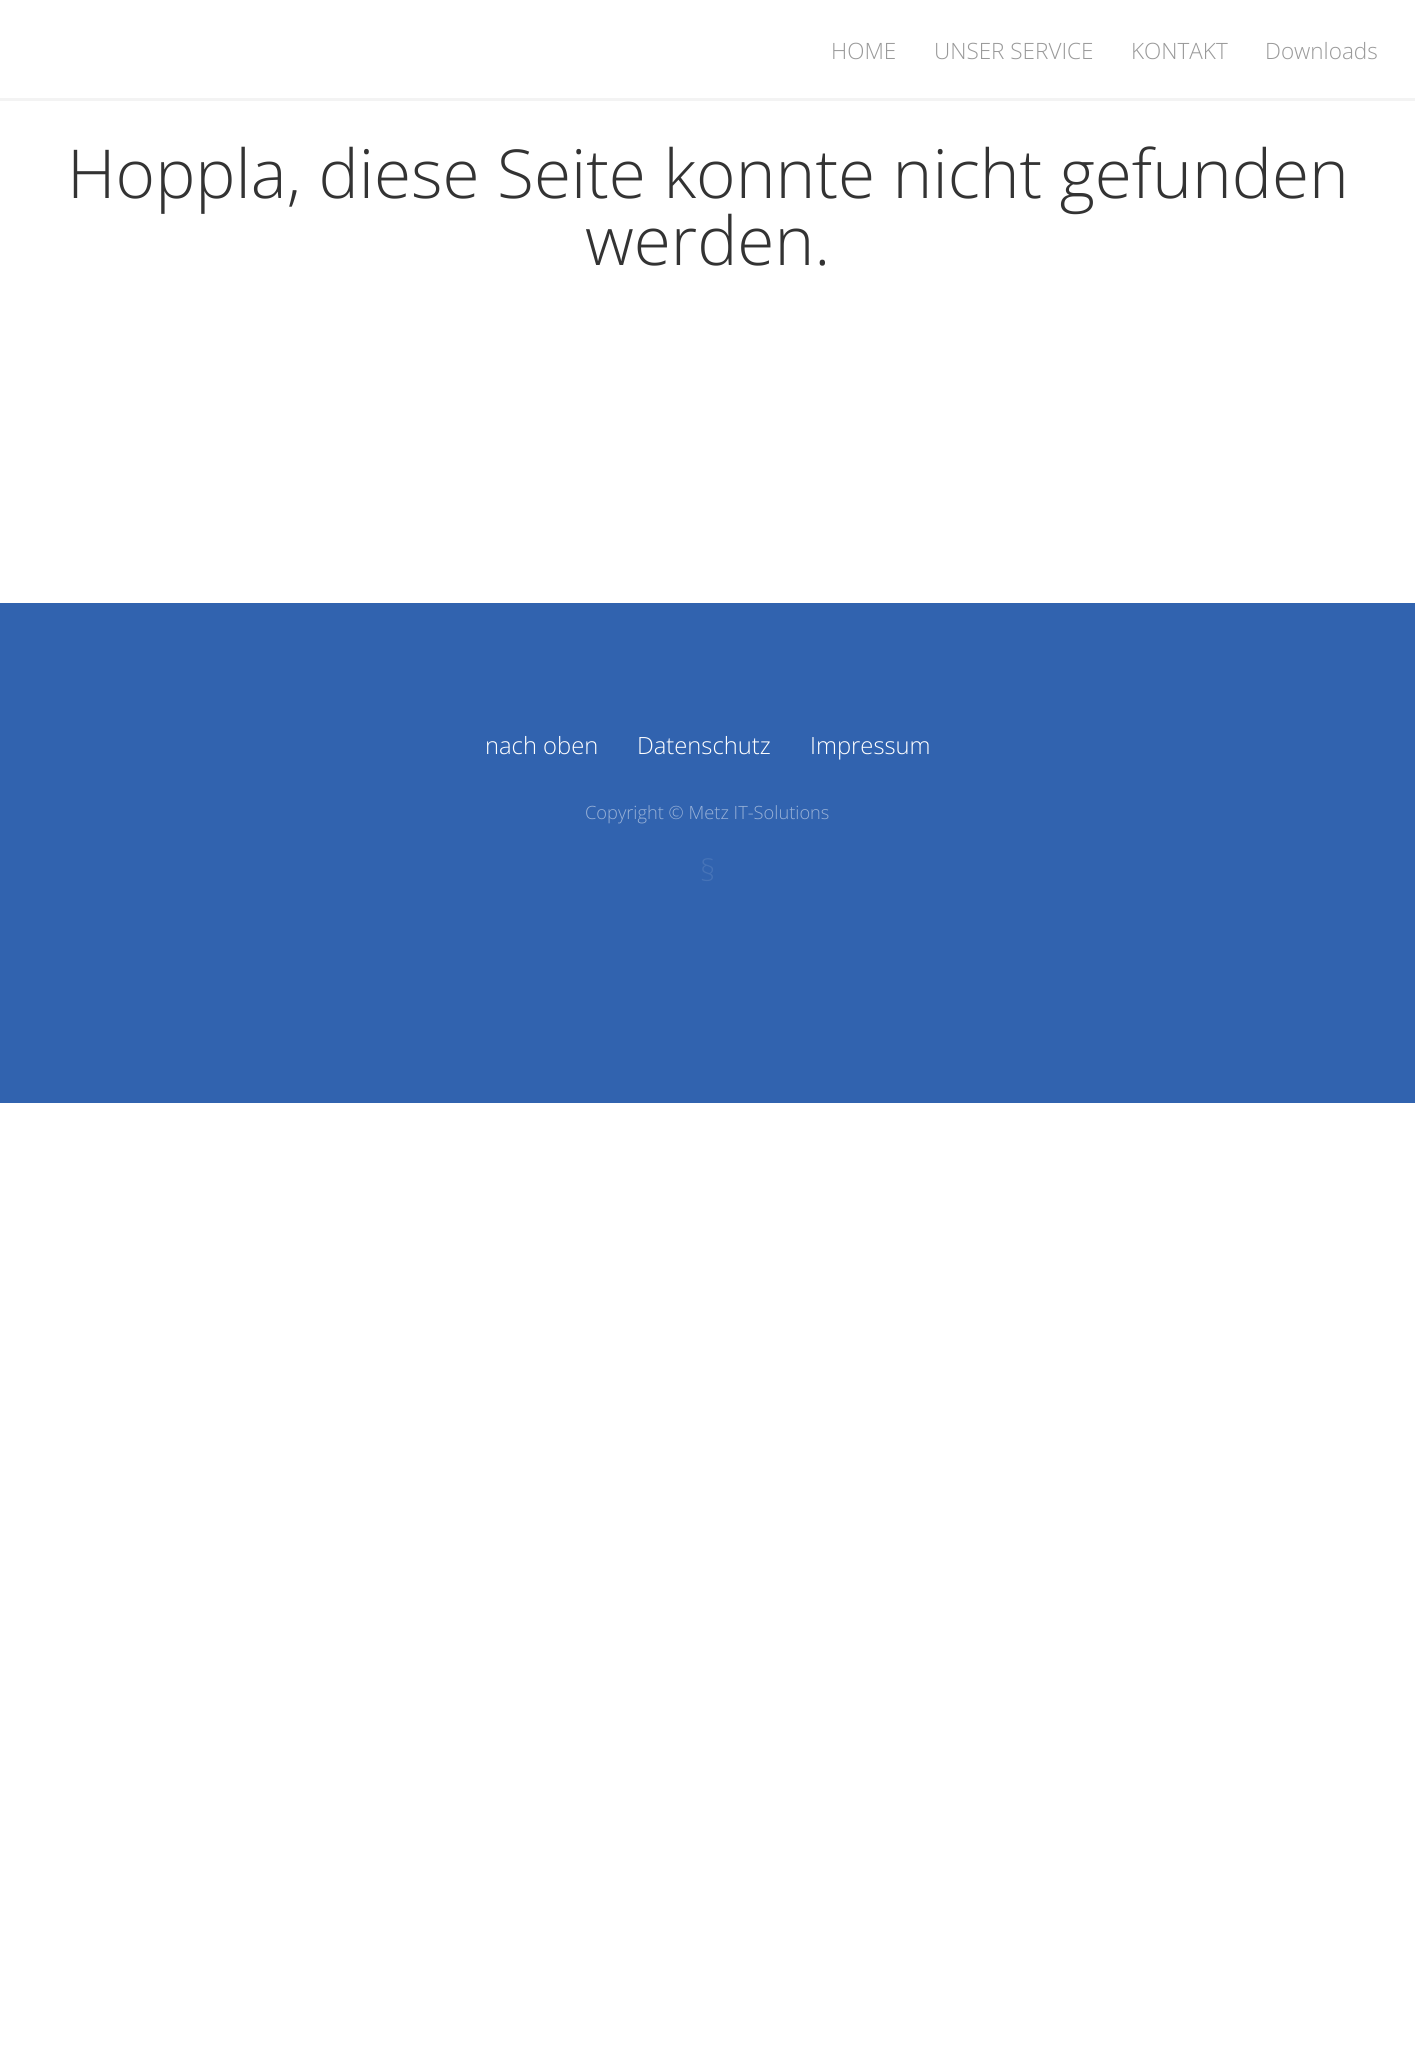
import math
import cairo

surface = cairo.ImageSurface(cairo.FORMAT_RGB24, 1415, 2061)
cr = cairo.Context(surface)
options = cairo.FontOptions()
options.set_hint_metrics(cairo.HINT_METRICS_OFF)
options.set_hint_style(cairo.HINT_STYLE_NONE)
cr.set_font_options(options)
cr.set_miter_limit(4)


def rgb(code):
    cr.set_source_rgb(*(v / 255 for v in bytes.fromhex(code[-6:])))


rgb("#ffffff")
cr.paint()
cr.set_source_rgba(0, 0, 0, 0.05)
cr.rectangle(0, 98, 1415, 3)
cr.fill()
rgb("#3163af")
cr.rectangle(0, 603, 1415, 500)
cr.fill()
cr.select_font_face("Open Sans Light")
cr.set_font_size(22.5)
rgb("#999999")
for x, y, s in [
    (831, 59, "HOME"),
    (934, 59, "UNSER SERVICE"),
    (1131, 59, "KONTAKT"),
    (1265, 59, "Downloads"),
]:
    cr.move_to(x, y)
    cr.show_text(s)
cr.set_font_size(67.5)
rgb("#333333")
cr.move_to(67, 198)
cr.show_text("Hoppla, diese Seite konnte nicht gefunden")
cr.move_to(585, 265)
cr.show_text("werden.")
cr.set_font_size(23.75)
rgb("#ffffff")
for x, y, s in [
    (485, 754, "nach oben"),
    (637, 754, "Datenschutz"),
    (810, 754, "Impressum"),
]:
    cr.move_to(x, y)
    cr.show_text(s)
cr.set_font_size(18.25)
rgb("#98b1d7")
cr.move_to(585, 819)
cr.show_text("Copyright © Metz IT-Solutions")
cr.set_font_size(30)
rgb("#4673b7")
cr.move_to(700, 881)
cr.show_text("§")
surface.write_to_png("page.png")
